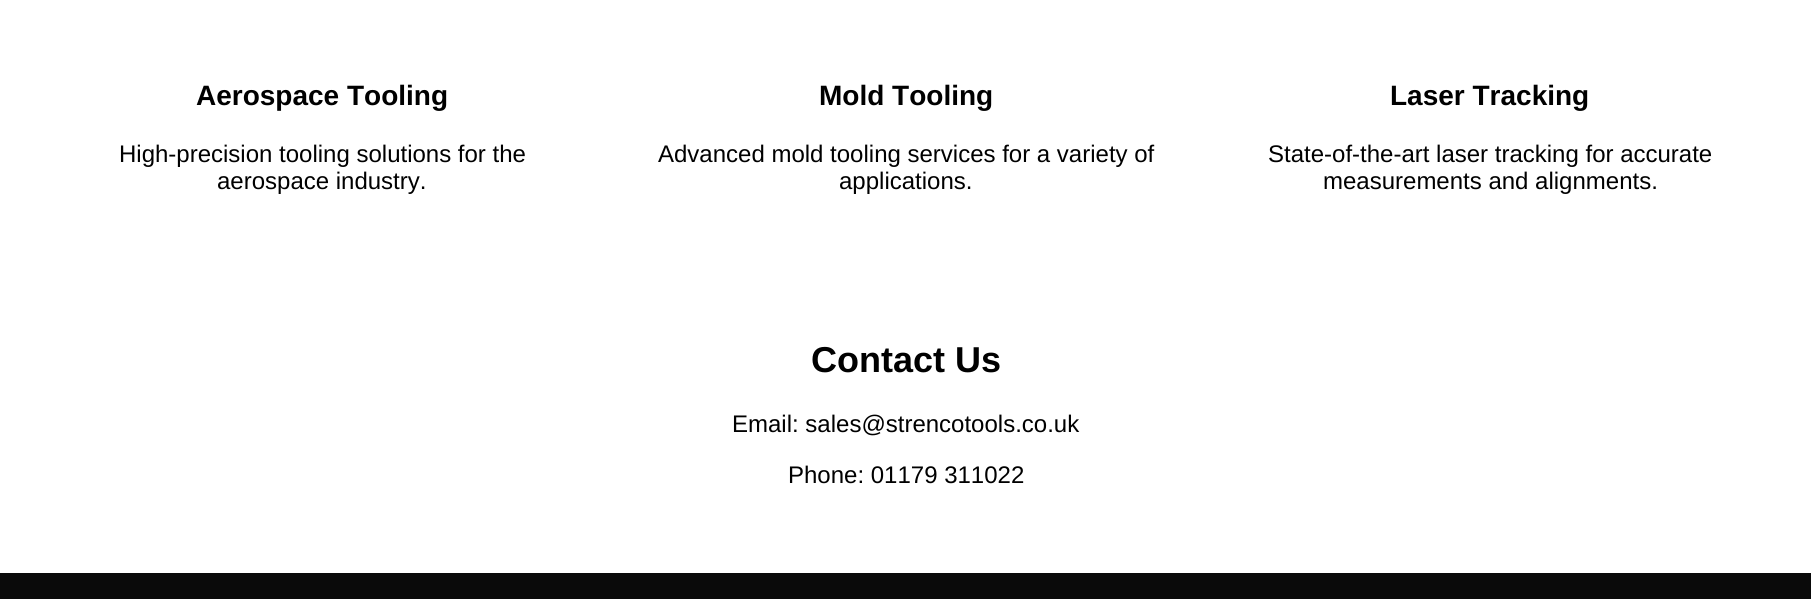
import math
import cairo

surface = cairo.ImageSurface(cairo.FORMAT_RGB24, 1811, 599)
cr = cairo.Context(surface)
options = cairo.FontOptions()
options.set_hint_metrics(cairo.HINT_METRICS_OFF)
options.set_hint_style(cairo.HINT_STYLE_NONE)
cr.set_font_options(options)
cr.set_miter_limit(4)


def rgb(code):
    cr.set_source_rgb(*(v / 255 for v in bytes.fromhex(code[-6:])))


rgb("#ffffff")
cr.paint()
rgb("#0a0a0a")
cr.rectangle(0, 573, 1811, 26)
cr.fill()
cr.select_font_face("Liberation Sans", cairo.FONT_SLANT_NORMAL, cairo.FONT_WEIGHT_BOLD)
cr.set_font_size(28)
rgb("#000000")
cr.move_to(196, 105)
cr.show_text("Aerospace Tooling")
cr.select_font_face("Liberation Sans")
cr.set_font_size(24)
cr.move_to(119, 162)
cr.show_text("High-precision tooling solutions for the")
cr.move_to(217, 189)
cr.show_text("aerospace industry.")
cr.select_font_face("Liberation Sans", cairo.FONT_SLANT_NORMAL, cairo.FONT_WEIGHT_BOLD)
cr.set_font_size(28)
cr.move_to(819, 105)
cr.show_text("Mold Tooling")
cr.select_font_face("Liberation Sans")
cr.set_font_size(24)
cr.move_to(658, 162)
cr.show_text("Advanced mold tooling services for a variety of")
cr.move_to(839, 189)
cr.show_text("applications.")
cr.select_font_face("Liberation Sans", cairo.FONT_SLANT_NORMAL, cairo.FONT_WEIGHT_BOLD)
cr.set_font_size(28)
cr.move_to(1390, 105)
cr.show_text("Laser Tracking")
cr.select_font_face("Liberation Sans")
cr.set_font_size(24)
cr.move_to(1268, 162)
cr.show_text("State-of-the-art laser tracking for accurate")
cr.move_to(1323, 189)
cr.show_text("measurements and alignments.")
cr.select_font_face("Liberation Sans", cairo.FONT_SLANT_NORMAL, cairo.FONT_WEIGHT_BOLD)
cr.set_font_size(36)
cr.move_to(811, 372)
cr.show_text("Contact Us")
cr.select_font_face("Liberation Sans")
cr.set_font_size(24)
cr.move_to(732, 432)
cr.show_text("Email: sales@strencotools.co.uk")
cr.move_to(788, 483)
cr.show_text("Phone: 01179 311022")
surface.write_to_png("page.png")
